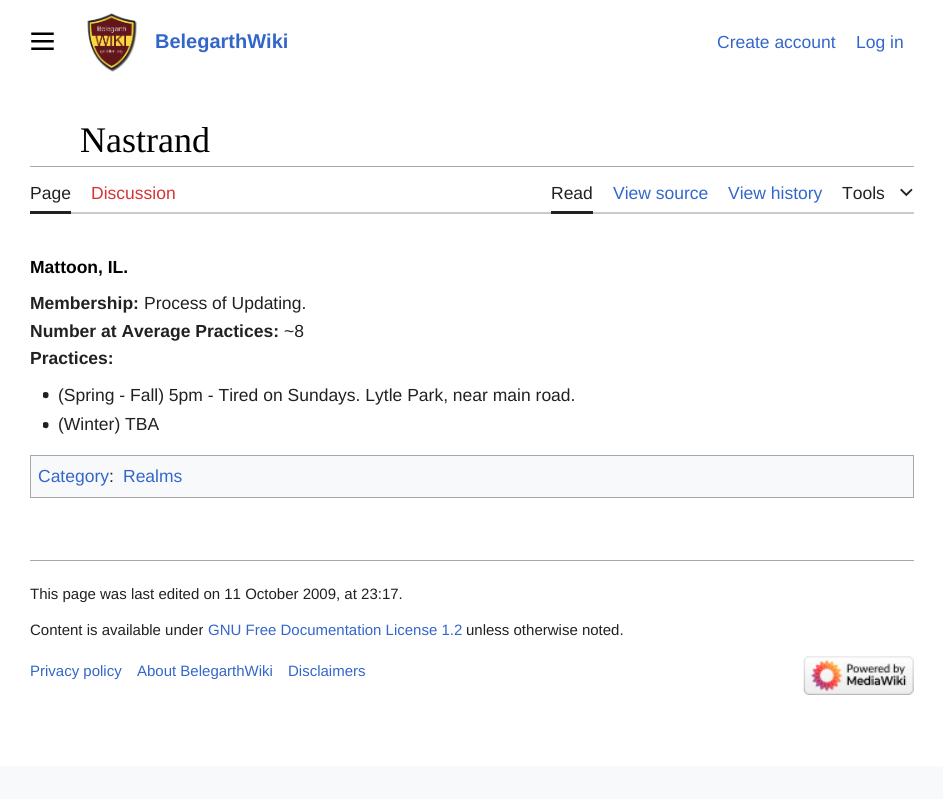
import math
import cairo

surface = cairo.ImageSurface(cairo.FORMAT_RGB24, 943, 799)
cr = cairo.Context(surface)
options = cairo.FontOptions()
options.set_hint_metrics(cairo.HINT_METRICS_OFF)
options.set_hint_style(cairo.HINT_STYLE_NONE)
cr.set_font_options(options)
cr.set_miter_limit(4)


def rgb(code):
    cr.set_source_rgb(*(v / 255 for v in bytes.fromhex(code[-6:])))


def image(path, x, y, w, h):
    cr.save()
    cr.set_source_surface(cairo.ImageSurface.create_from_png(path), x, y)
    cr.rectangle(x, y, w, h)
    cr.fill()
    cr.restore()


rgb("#f8f9fa")
cr.paint()
rgb("#ffffff")
cr.rectangle(0, 0, 943, 766)
cr.fill()
image("img/1.png", 31, 32, 23, 18)
image("img/2.png", 87, 13, 50, 59)
rgb("#a2a9b1")
cr.rectangle(30, 166, 884, 1)
cr.fill()
rgb("#c8ccd1")
cr.new_path()
cr.move_to(30, 212)
cr.line_to(30, 214)
cr.line_to(914, 214)
cr.line_to(914, 169)
cr.line_to(914, 212)
cr.close_path()
cr.fill()
rgb("#202122")
cr.rectangle(30, 211, 41, 3)
cr.fill()
cr.rectangle(551, 211, 42, 3)
cr.fill()
image("img/3.png", 900, 188, 13, 9)
image("img/4.png", 43, 392, 6, 7)
image("img/4.png", 43, 422, 6, 7)
rgb("#f8f9fa")
cr.rectangle(30.5, 455.5, 883, 42)
cr.fill_preserve()
rgb("#a2a9b1")
cr.set_line_width(1)
cr.stroke()
cr.rectangle(30, 560, 884, 1)
cr.fill()
image("img/5.png", 803, 656, 111, 39)
cr.select_font_face("Liberation Sans", cairo.FONT_SLANT_NORMAL, cairo.FONT_WEIGHT_BOLD)
cr.set_font_size(20)
rgb("#3366cc")
cr.move_to(155, 48)
cr.show_text("BelegarthWiki")
cr.select_font_face("Liberation Sans")
cr.set_font_size(17.5)
cr.move_to(717, 48)
cr.show_text("Create account")
cr.move_to(856, 48)
cr.show_text("Log in")
cr.select_font_face("Liberation Serif")
cr.set_font_size(36)
rgb("#000000")
cr.move_to(80, 152)
cr.show_text("Nastrand")
cr.select_font_face("Liberation Sans")
cr.set_font_size(17.5)
rgb("#202122")
cr.move_to(30, 199)
cr.show_text("Page")
rgb("#d73333")
cr.move_to(91, 199)
cr.show_text("Discussion")
rgb("#202122")
cr.move_to(551, 199)
cr.show_text("Read")
rgb("#3366cc")
cr.move_to(613, 199)
cr.show_text("View source")
cr.move_to(728, 199)
cr.show_text("View history")
rgb("#202122")
cr.move_to(842, 199)
cr.show_text("Tools")
cr.select_font_face("Liberation Sans", cairo.FONT_SLANT_NORMAL, cairo.FONT_WEIGHT_BOLD)
rgb("#000000")
cr.move_to(30, 273)
cr.show_text("Mattoon, IL.")
rgb("#202122")
cr.move_to(30, 309)
cr.show_text("Membership:")
cr.select_font_face("Liberation Sans")
cr.move_to(144, 309)
cr.show_text("Process of Updating.")
cr.select_font_face("Liberation Sans", cairo.FONT_SLANT_NORMAL, cairo.FONT_WEIGHT_BOLD)
cr.move_to(30, 337)
cr.show_text("Number at Average Practices:")
cr.select_font_face("Liberation Sans")
cr.move_to(284, 337)
cr.show_text("~8")
cr.select_font_face("Liberation Sans", cairo.FONT_SLANT_NORMAL, cairo.FONT_WEIGHT_BOLD)
cr.move_to(30, 364)
cr.show_text("Practices:")
cr.select_font_face("Liberation Sans")
cr.move_to(58, 401)
cr.show_text("(Spring - Fall) 5pm - Tired on Sundays. Lytle Park, near main road.")
cr.move_to(58, 430)
cr.show_text("(Winter) TBA")
rgb("#3366cc")
cr.move_to(38, 482)
cr.show_text("Category")
rgb("#202122")
cr.move_to(109, 482)
cr.show_text(":")
rgb("#3366cc")
cr.move_to(123, 482)
cr.show_text("Realms")
cr.set_font_size(15)
rgb("#202122")
cr.move_to(30, 599)
cr.show_text("This page was last edited on 11 October 2009, at 23:17.")
cr.move_to(30, 635)
cr.show_text("Content is available under")
rgb("#3366cc")
cr.move_to(208, 635)
cr.show_text("GNU Free Documentation License 1.2")
rgb("#202122")
cr.move_to(466, 635)
cr.show_text("unless otherwise noted.")
rgb("#3366cc")
for x, y, s in [
    (30, 676, "Privacy policy"),
    (137, 676, "About BelegarthWiki"),
    (288, 676, "Disclaimers"),
]:
    cr.move_to(x, y)
    cr.show_text(s)
surface.write_to_png("page.png")
